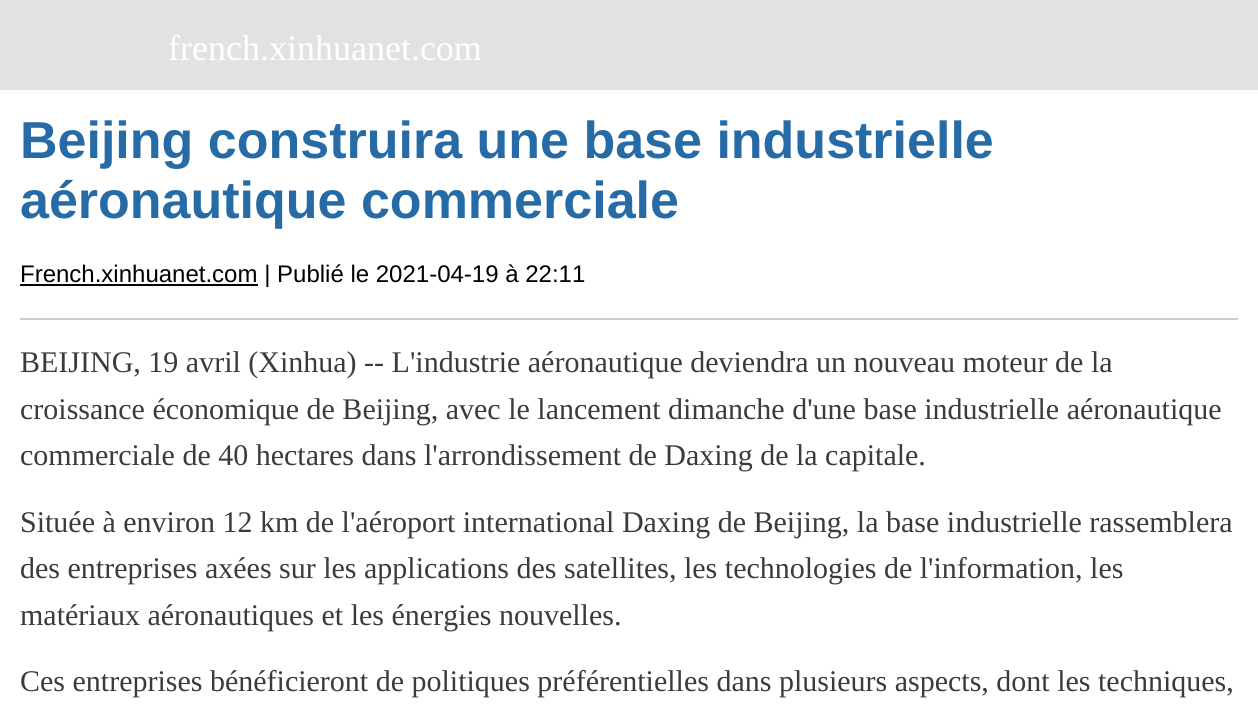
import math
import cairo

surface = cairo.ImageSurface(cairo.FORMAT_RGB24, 1258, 727)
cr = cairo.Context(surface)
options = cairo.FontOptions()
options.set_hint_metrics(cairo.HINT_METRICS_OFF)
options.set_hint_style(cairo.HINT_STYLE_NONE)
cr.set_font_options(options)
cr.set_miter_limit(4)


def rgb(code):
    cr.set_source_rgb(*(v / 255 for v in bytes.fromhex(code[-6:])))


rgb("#ffffff")
cr.paint()
for x, y, w, h, color in [
    (0, 0, 1258, 90, "#e2e2e2"),
    (20, 318, 1218, 2, "#cccccc"),
    (20, 284, 238, 2, "#000000"),
]:
    rgb(color)
    cr.rectangle(x, y, w, h)
    cr.fill()
cr.select_font_face("Liberation Serif")
cr.set_font_size(36)
rgb("#ffffff")
cr.move_to(168, 60)
cr.show_text("french.xinhuanet.com")
cr.select_font_face("Liberation Sans", cairo.FONT_SLANT_NORMAL, cairo.FONT_WEIGHT_BOLD)
cr.set_font_size(52)
rgb("#266ba6")
cr.move_to(20, 158)
cr.show_text("Beijing construira une base industrielle")
cr.move_to(20, 218)
cr.show_text("aéronautique commerciale")
cr.select_font_face("Liberation Sans")
cr.set_font_size(24)
rgb("#000000")
cr.move_to(20, 282)
cr.show_text("French.xinhuanet.com | Publié le 2021-04-19 à 22:11")
cr.select_font_face("Liberation Serif")
cr.set_font_size(30)
rgb("#3b3b3b")
for x, y, s in [
    (20, 372, "BEIJING, 19 avril (Xinhua) -- L'industrie aéronautique deviendra un nouveau moteur de la"),
    (20, 419, "croissance économique de Beijing, avec le lancement dimanche d'une base industrielle aéronautique"),
    (20, 465, "commerciale de 40 hectares dans l'arrondissement de Daxing de la capitale."),
    (20, 532, "Située à environ 12 km de l'aéroport international Daxing de Beijing, la base industrielle rassemblera"),
    (20, 578, "des entreprises axées sur les applications des satellites, les technologies de l'information, les"),
    (20, 625, "matériaux aéronautiques et les énergies nouvelles."),
    (20, 691, "Ces entreprises bénéficieront de politiques préférentielles dans plusieurs aspects, dont les techniques,"),
]:
    cr.move_to(x, y)
    cr.show_text(s)
surface.write_to_png("page.png")
